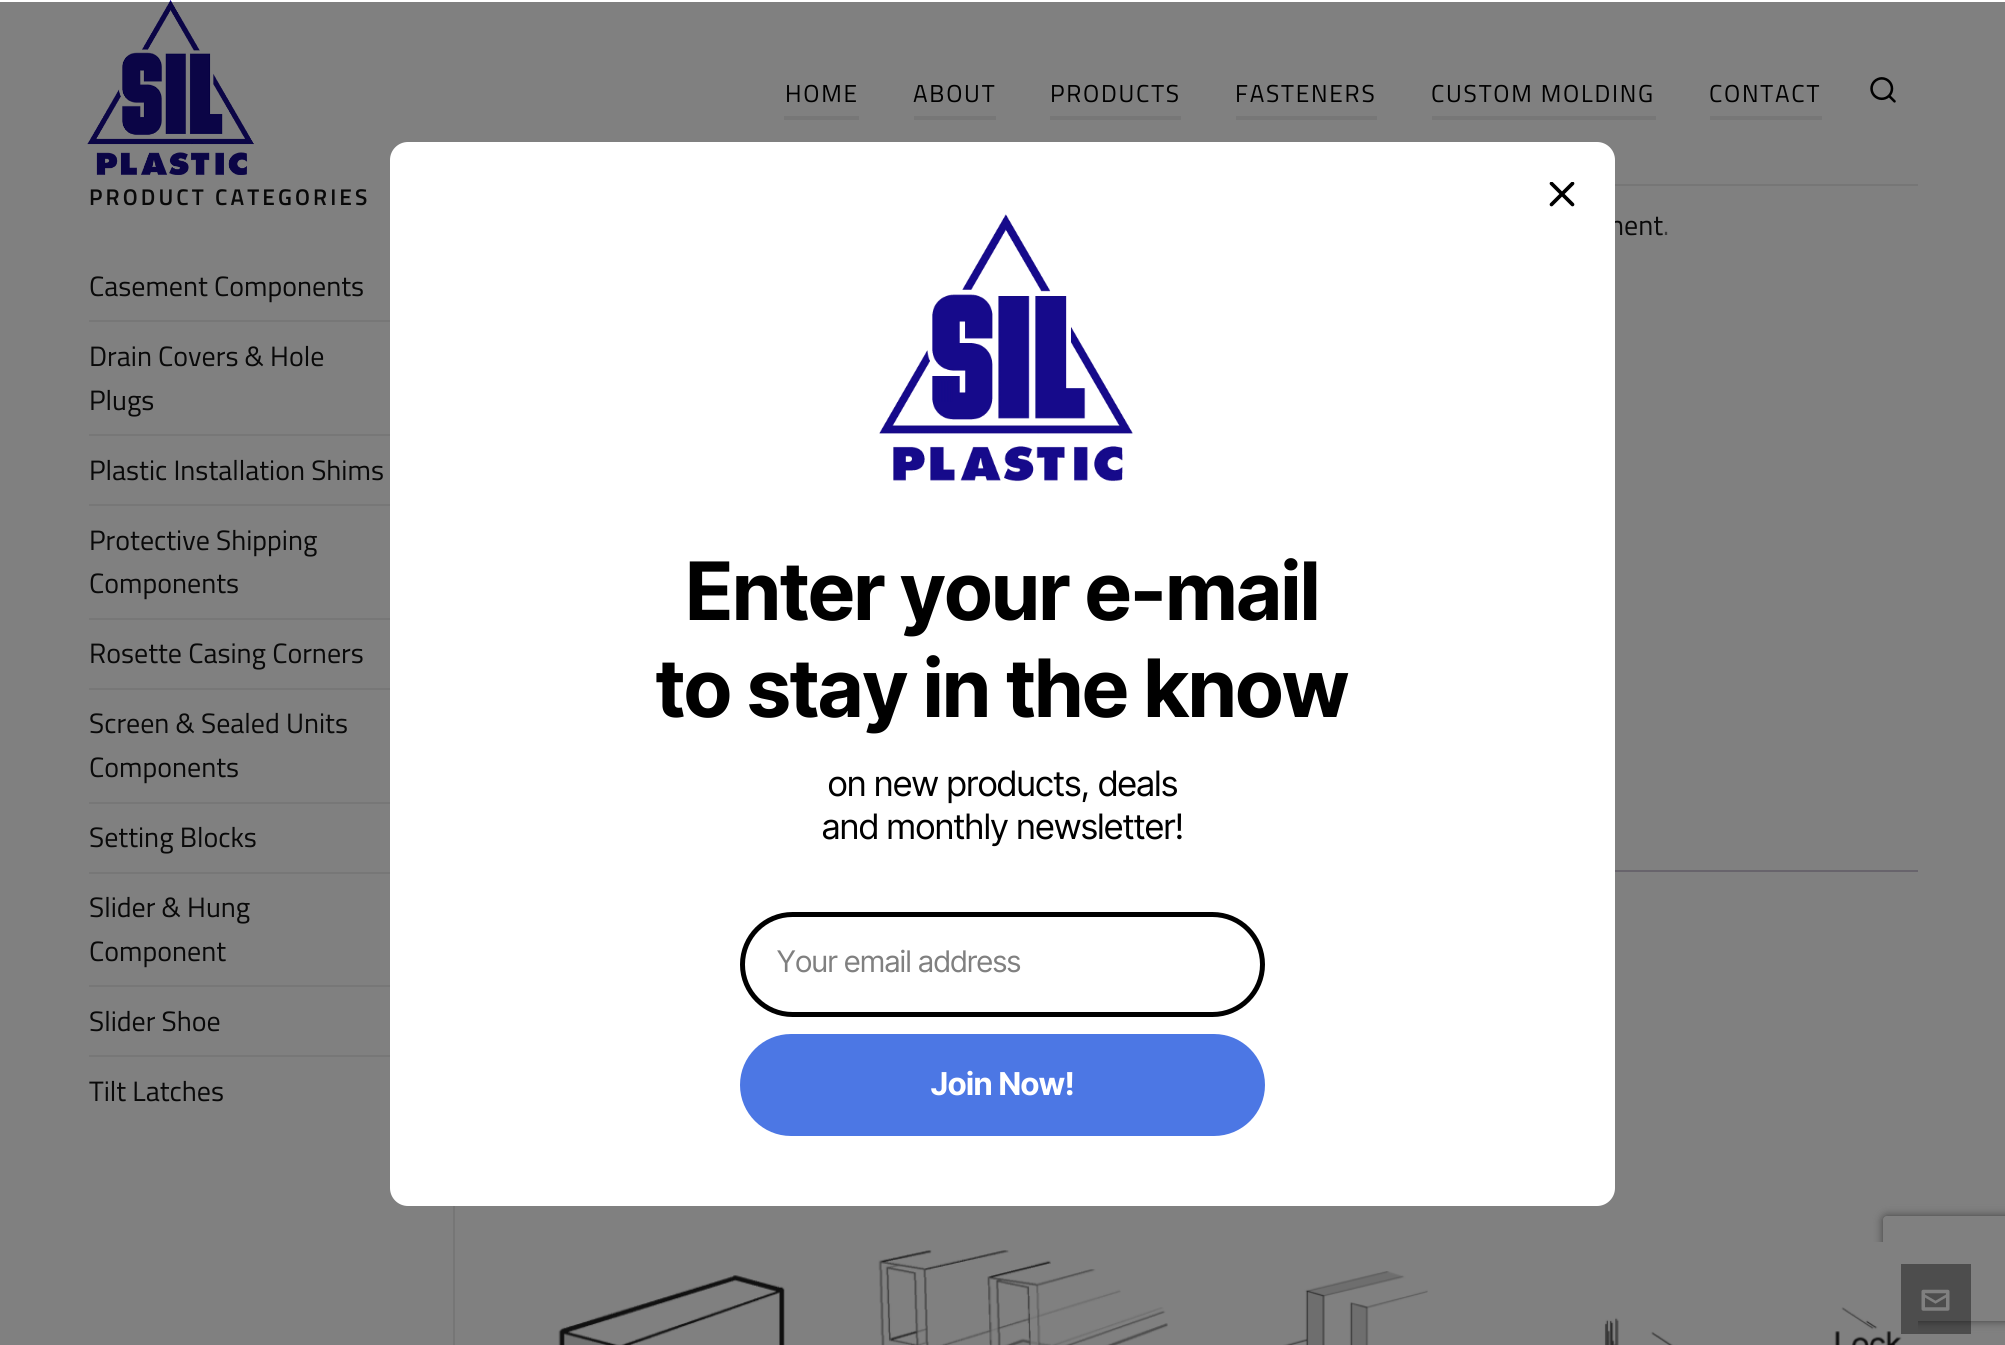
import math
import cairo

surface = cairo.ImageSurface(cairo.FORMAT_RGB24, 2005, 1345)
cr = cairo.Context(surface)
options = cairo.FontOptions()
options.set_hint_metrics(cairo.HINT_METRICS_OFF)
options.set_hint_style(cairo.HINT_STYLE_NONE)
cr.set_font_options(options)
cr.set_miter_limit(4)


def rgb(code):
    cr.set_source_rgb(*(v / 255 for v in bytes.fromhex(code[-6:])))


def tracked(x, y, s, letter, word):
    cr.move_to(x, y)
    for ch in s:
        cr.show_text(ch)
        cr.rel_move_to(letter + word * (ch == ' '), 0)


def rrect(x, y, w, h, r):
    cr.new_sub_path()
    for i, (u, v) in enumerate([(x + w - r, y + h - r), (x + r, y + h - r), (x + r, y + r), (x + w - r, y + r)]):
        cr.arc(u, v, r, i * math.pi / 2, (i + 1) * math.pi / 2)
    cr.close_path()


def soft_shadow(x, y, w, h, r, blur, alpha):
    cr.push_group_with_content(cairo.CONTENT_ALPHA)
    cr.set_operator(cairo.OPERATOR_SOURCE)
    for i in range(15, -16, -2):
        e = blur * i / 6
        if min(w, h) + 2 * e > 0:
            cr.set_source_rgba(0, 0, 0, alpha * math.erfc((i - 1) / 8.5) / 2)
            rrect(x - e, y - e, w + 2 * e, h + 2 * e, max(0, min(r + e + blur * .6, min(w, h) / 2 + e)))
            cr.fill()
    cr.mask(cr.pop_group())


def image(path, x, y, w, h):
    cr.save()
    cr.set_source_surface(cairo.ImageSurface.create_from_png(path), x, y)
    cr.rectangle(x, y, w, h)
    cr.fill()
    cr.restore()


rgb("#808080")
cr.paint()
rgb("#ffffff")
cr.rectangle(0, 0, 2005, 2)
cr.fill()
image("img/1.png", 87, 0, 167, 175)
for x, y, w, h, color in [
    (784, 116, 75, 4, "#777777"),
    (914, 116, 82, 4, "#777777"),
    (1050, 116, 131, 4, "#777777"),
    (1236, 116, 141, 4, "#777777"),
    (1432, 116, 224, 4, "#777777"),
    (1710, 116, 112, 4, "#777777"),
]:
    rgb(color)
    cr.rectangle(x, y, w, h)
    cr.fill()
image("img/2.png", 1870, 77, 26, 26)
for x, y, w, h, color in [
    (89, 320, 301, 2, "#777777"),
    (89, 434, 301, 2, "#777777"),
    (89, 504, 301, 2, "#777777"),
    (89, 618, 301, 2, "#777777"),
    (89, 688, 301, 2, "#777777"),
    (89, 802, 301, 2, "#777777"),
    (89, 872, 301, 2, "#777777"),
    (89, 985, 301, 2, "#777777"),
    (89, 1055, 301, 2, "#777777"),
    (453, 1206, 2, 139, "#767676"),
    (1615, 184, 303, 2, "#767676"),
    (1615, 870, 303, 2, "#68646c"),
]:
    rgb(color)
    cr.rectangle(x, y, w, h)
    cr.fill()
image("img/3.png", 558, 1275, 227, 70)
image("img/4.png", 878, 1250, 290, 95)
image("img/5.png", 1283, 1271, 145, 74)
cr.save()
cr.set_fill_rule(cairo.FILL_RULE_EVEN_ODD)
cr.new_path()
cr.move_to(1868, 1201)
cr.line_to(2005, 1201)
cr.line_to(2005, 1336)
cr.line_to(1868, 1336)
cr.close_path()
cr.move_to(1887, 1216)
cr.line_to(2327, 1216)
cr.curve_to(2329, 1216, 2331, 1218, 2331, 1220)
cr.line_to(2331, 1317)
cr.curve_to(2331, 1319, 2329, 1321, 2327, 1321)
cr.line_to(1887, 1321)
cr.curve_to(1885, 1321, 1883, 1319, 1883, 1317)
cr.line_to(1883, 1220)
cr.curve_to(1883, 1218, 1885, 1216, 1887, 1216)
cr.close_path()
cr.clip()
rgb("#404040")
soft_shadow(1883, 1216, 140, 105, 4, 4.5, 1)
cr.restore()
image("img/6.png", 1604, 1242, 314, 103)
cr.set_source_rgba(0, 0, 0, 0.4)
cr.rectangle(1901, 1264, 70, 70)
cr.fill()
image("img/7.png", 1921, 1289, 29, 22)
cr.select_font_face("Titillium Web")
cr.set_font_size(24.5)
rgb("#000000")
for x, y, s in [
    (785, 102, "HOME"),
    (913, 102, "ABOUT"),
    (1050, 102, "PRODUCTS"),
    (1235, 102, "FASTENERS"),
    (1431, 102, "CUSTOM MOLDING"),
    (1709, 102, "CONTACT"),
]:
    tracked(x, y, s, 1.75, 0)
cr.select_font_face("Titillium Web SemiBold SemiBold")
cr.set_font_size(22.75)
rgb("#090909")
tracked(89, 205, "PRODUCT CATEGORIES", 3.1, 0)
cr.select_font_face("Titillium Web")
cr.set_font_size(28)
for x, y, s in [
    (89, 296, "Casement Components"),
    (89, 366, "Drain Covers & Hole"),
    (89, 410, "Plugs"),
    (89, 480, "Plastic Installation Shims"),
    (89, 550, "Protective Shipping"),
    (89, 593, "Components"),
    (89, 663, "Rosette Casing Corners"),
    (89, 733, "Screen & Sealed Units"),
    (89, 777, "Components"),
    (89, 847, "Setting Blocks"),
    (89, 917, "Slider & Hung"),
    (89, 961, "Component"),
    (89, 1031, "Slider Shoe"),
    (89, 1101, "Tilt Latches"),
    (1609, 235, "nent"),
]:
    cr.move_to(x, y)
    cr.show_text(s)
rgb("#3c3c3c")
cr.move_to(1663, 235)
cr.show_text(".")
rgb("#ffffff")
rrect(390, 142, 1225, 1064, 18)
cr.fill()
cr.save()
cr.rectangle(1549, 182, 26, 26)
cr.clip()
cr.new_path()
cr.move_to(1551.5, 183.5)
cr.line_to(1572.5, 204.5)
cr.move_to(1572.5, 183.5)
cr.line_to(1551.5, 204.5)
rgb("#000000")
cr.set_line_width(3.7)
cr.set_line_cap(cairo.LINE_CAP_ROUND)
cr.stroke()
cr.restore()
image("img/8.png", 879, 214, 254, 268)
cr.select_font_face("Inter Tight", cairo.FONT_SLANT_NORMAL, cairo.FONT_WEIGHT_BOLD)
cr.set_font_size(80.5)
rgb("#000000")
cr.move_to(686, 620)
cr.show_text("Enter your e-mail")
cr.move_to(656, 717)
cr.show_text("to stay in the know")
cr.select_font_face("Inter Tight")
cr.set_font_size(35)
cr.move_to(828, 796)
cr.show_text("on new products, deals")
cr.move_to(822, 839)
cr.show_text("and monthly newsletter!")
rrect(742.5, 914.5, 520, 100, 50)
cr.set_line_width(5)
cr.stroke()
cr.set_font_size(29.75)
rgb("#808080")
cr.move_to(777, 972)
cr.show_text("Your email address")
rgb("#4c77e4")
rrect(740, 1034, 525, 102, 51)
cr.fill()
cr.select_font_face("Inter Tight", cairo.FONT_SLANT_NORMAL, cairo.FONT_WEIGHT_BOLD)
cr.set_font_size(31.5)
rgb("#ffffff")
cr.move_to(931, 1095)
cr.show_text("Join Now!")
surface.write_to_png("page.png")
